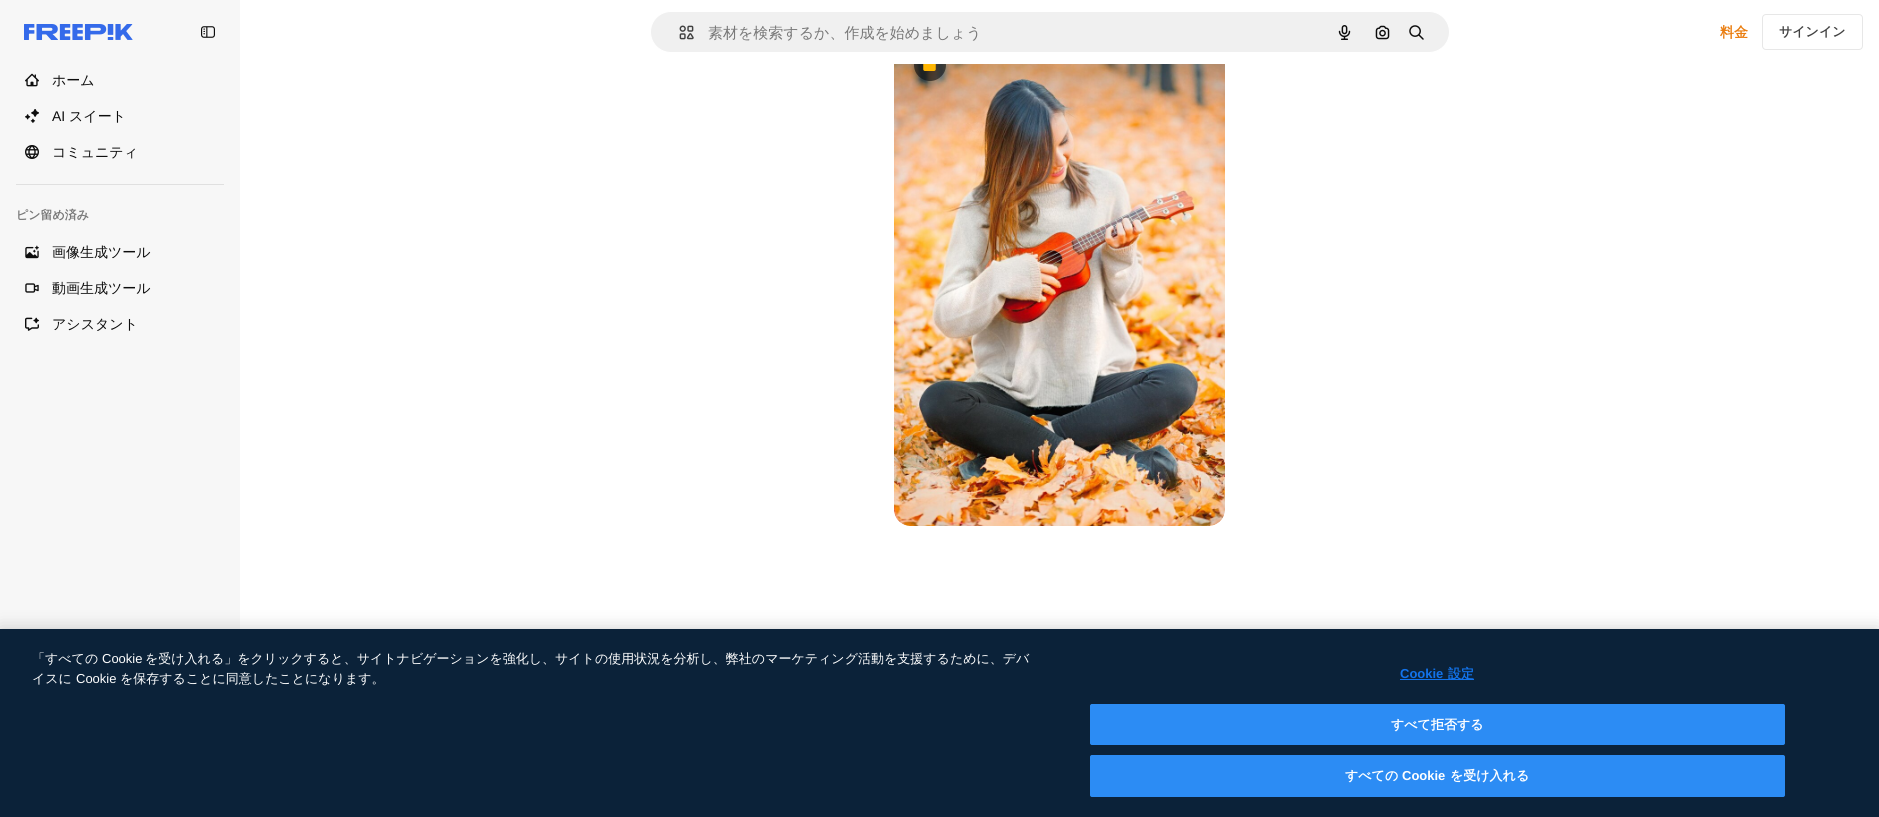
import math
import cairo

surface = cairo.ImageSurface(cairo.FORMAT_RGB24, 1879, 817)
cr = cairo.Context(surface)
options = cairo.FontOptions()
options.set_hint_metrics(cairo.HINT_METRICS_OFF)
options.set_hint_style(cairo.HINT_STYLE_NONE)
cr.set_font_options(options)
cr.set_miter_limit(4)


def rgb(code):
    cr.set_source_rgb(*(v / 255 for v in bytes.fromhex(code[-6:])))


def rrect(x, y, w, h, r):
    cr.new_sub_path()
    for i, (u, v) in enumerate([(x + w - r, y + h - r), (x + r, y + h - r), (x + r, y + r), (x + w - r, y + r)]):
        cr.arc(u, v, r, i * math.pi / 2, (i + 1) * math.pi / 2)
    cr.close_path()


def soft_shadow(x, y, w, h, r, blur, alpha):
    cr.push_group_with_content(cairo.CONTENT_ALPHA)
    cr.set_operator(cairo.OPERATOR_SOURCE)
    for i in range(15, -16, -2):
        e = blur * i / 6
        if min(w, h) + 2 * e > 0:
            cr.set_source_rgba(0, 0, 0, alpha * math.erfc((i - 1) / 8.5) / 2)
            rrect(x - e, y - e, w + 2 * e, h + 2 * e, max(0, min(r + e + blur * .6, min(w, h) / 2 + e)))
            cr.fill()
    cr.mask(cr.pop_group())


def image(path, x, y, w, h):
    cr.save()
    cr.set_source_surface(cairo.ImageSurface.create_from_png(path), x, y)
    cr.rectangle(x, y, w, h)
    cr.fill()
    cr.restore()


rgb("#ffffff")
cr.paint()
image("img/6.png", 894, 64, 331, 462)
cr.set_source_rgba(0.051, 0.051, 0.051, 0.6)
cr.arc(930, 65, 16, 0, 2 * math.pi)
cr.fill()
rgb("#ffffff")
cr.rectangle(914, 49, 32, 15)
cr.fill()
rgb("#f0f0f0")
rrect(650.5, 11.5, 799, 41, 20.5)
cr.fill_preserve()
rgb("#ffffff")
cr.set_line_width(1)
cr.stroke()
image("img/1.png", 679, 25, 15, 15)
image("img/2.png", 1338, 25, 13, 15)
image("img/3.png", 1375, 25, 15, 15)
image("img/4.png", 1409, 25, 15, 15)
rrect(1762.5, 14.5, 100, 35, 3.5)
rgb("#e7e7e7")
cr.stroke()
image("img/5.png", 923, 64, 13, 7)
rgb("#f7f7f7")
cr.rectangle(0, 0, 240, 629)
cr.fill()
image("img/7.png", 24, 24, 109, 16)
image("img/8.png", 201, 26, 14, 12)
image("img/9.png", 25, 73, 14, 14)
image("img/10.png", 25, 109, 14, 14)
image("img/11.png", 25, 145, 14, 14)
rgb("#e0e0e0")
cr.rectangle(16, 184, 208, 1)
cr.fill()
image("img/12.png", 25, 245, 14, 14)
image("img/13.png", 25, 283, 14, 10)
image("img/14.png", 25, 317, 14, 14)
rgb("#000000")
soft_shadow(0, 629, 1879, 188, 0, 9, 0.2)
rgb("#0b2239")
cr.rectangle(0, 629, 1879, 188)
cr.fill()
rgb("#1273eb")
cr.rectangle(1400, 679, 74, 1)
cr.fill()
rgb("#2c8cf4")
rrect(1090.5, 704.5, 694, 40, 1.5)
cr.fill_preserve()
cr.stroke()
rrect(1090.5, 755.5, 694, 41, 1.5)
cr.fill_preserve()
cr.stroke()
cr.select_font_face("WenQuanYi Zen Hei Medium")
cr.set_font_size(15)
rgb("#787878")
cr.move_to(708, 38)
cr.show_text("素材を検索するか、作成を始めましょう")
cr.select_font_face("WenQuanYi Zen Hei", cairo.FONT_SLANT_NORMAL, cairo.FONT_WEIGHT_BOLD)
cr.set_font_size(14)
rgb("#ea7e11")
cr.move_to(1720, 37)
cr.show_text("料金")
cr.set_font_size(13)
rgb("#424242")
cr.move_to(1779, 36)
cr.show_text("サインイン")
cr.select_font_face("WenQuanYi Zen Hei Medium")
cr.set_font_size(14)
rgb("#0d0d0d")
cr.move_to(52, 85)
cr.show_text("ホーム")
cr.select_font_face("Liberation Sans")
cr.move_to(52, 121)
cr.show_text("AI")
cr.select_font_face("WenQuanYi Zen Hei Medium")
cr.move_to(69, 121)
cr.show_text("スイート")
cr.move_to(52, 157)
cr.show_text("コミュニティ")
cr.select_font_face("WenQuanYi Zen Hei", cairo.FONT_SLANT_NORMAL, cairo.FONT_WEIGHT_BOLD)
cr.set_font_size(12)
rgb("#787878")
cr.move_to(16, 219)
cr.show_text("ピン留め済み")
cr.select_font_face("WenQuanYi Zen Hei Medium")
cr.set_font_size(14)
rgb("#0d0d0d")
for x, y, s in [
    (52, 257, "画像生成ツール"),
    (52, 293, "動画生成ツール"),
    (52, 329, "アシスタント"),
]:
    cr.move_to(x, y)
    cr.show_text(s)
cr.set_font_size(13)
rgb("#ffffff")
cr.move_to(32, 663)
cr.show_text("「すべての")
cr.select_font_face("Liberation Sans")
cr.move_to(102, 663)
cr.show_text("Cookie")
cr.select_font_face("WenQuanYi Zen Hei Medium")
cr.move_to(145, 663)
cr.show_text("を受け入れる」をクリックすると、サイトナビゲーションを強化し、サイトの使用状況を分析し、弊社のマーケティング活動を支援するために、デバ")
cr.move_to(32, 683)
cr.show_text("イスに")
cr.select_font_face("Liberation Sans")
cr.move_to(76, 683)
cr.show_text("Cookie")
cr.select_font_face("WenQuanYi Zen Hei Medium")
cr.move_to(120, 683)
cr.show_text("を保存することに同意したことになります。")
cr.select_font_face("Liberation Sans", cairo.FONT_SLANT_NORMAL, cairo.FONT_WEIGHT_BOLD)
rgb("#1273eb")
cr.move_to(1400, 678)
cr.show_text("Cookie")
cr.select_font_face("WenQuanYi Zen Hei", cairo.FONT_SLANT_NORMAL, cairo.FONT_WEIGHT_BOLD)
cr.move_to(1448, 678)
cr.show_text("設定")
rgb("#ffffff")
cr.move_to(1391, 729)
cr.show_text("すべて拒否する")
cr.move_to(1345, 780)
cr.show_text("すべての")
cr.select_font_face("Liberation Sans", cairo.FONT_SLANT_NORMAL, cairo.FONT_WEIGHT_BOLD)
cr.move_to(1402, 780)
cr.show_text("Cookie")
cr.select_font_face("WenQuanYi Zen Hei", cairo.FONT_SLANT_NORMAL, cairo.FONT_WEIGHT_BOLD)
cr.move_to(1450, 780)
cr.show_text("を受け入れる")
surface.write_to_png("page.png")
